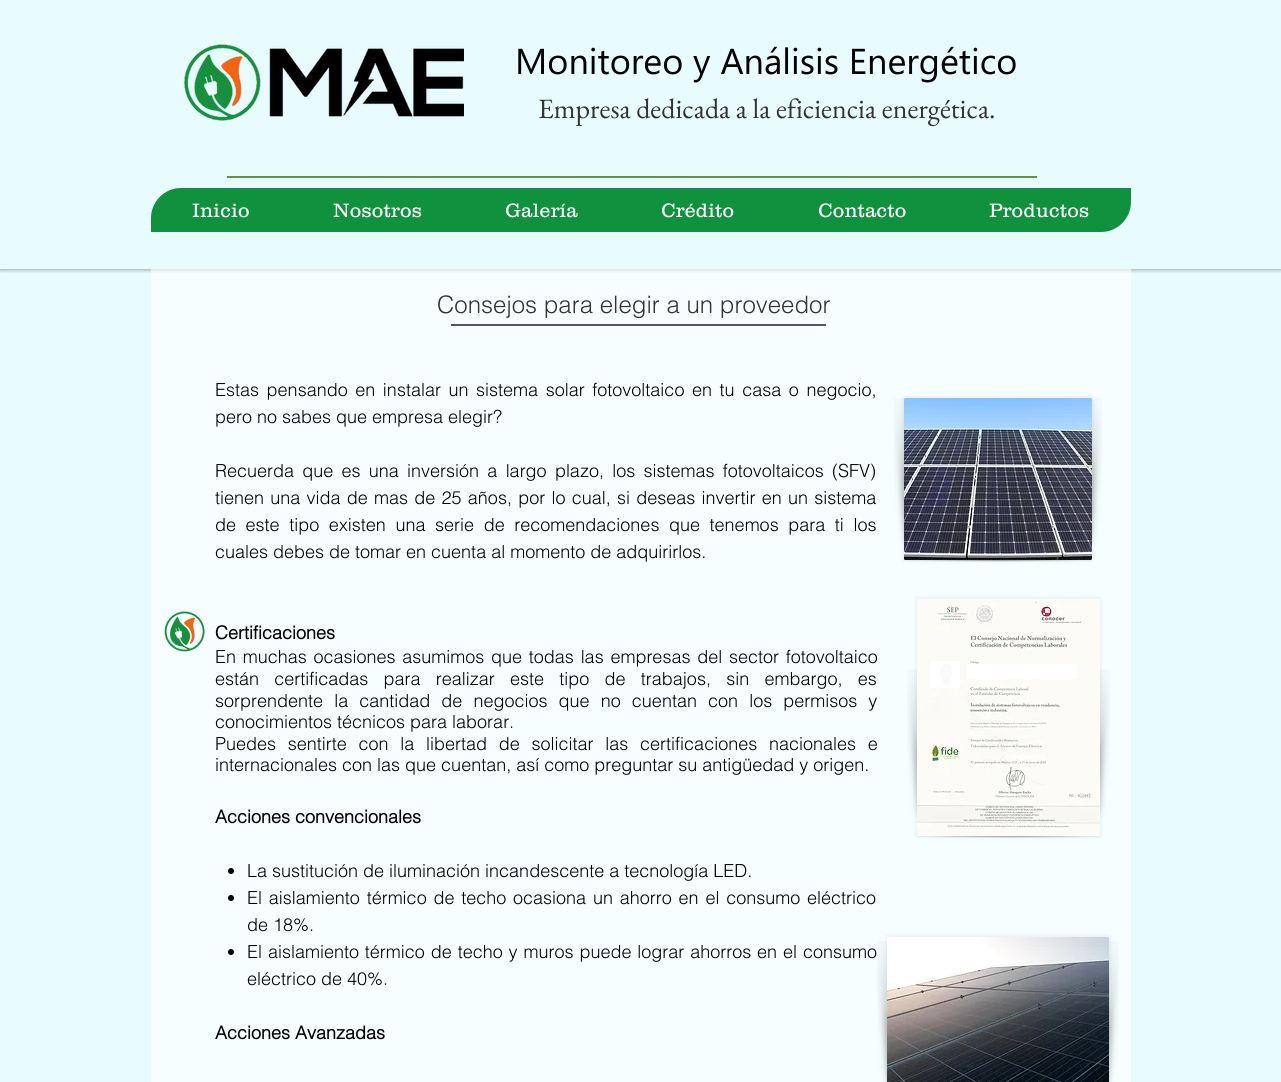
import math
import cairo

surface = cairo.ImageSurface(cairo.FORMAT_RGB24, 1281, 1082)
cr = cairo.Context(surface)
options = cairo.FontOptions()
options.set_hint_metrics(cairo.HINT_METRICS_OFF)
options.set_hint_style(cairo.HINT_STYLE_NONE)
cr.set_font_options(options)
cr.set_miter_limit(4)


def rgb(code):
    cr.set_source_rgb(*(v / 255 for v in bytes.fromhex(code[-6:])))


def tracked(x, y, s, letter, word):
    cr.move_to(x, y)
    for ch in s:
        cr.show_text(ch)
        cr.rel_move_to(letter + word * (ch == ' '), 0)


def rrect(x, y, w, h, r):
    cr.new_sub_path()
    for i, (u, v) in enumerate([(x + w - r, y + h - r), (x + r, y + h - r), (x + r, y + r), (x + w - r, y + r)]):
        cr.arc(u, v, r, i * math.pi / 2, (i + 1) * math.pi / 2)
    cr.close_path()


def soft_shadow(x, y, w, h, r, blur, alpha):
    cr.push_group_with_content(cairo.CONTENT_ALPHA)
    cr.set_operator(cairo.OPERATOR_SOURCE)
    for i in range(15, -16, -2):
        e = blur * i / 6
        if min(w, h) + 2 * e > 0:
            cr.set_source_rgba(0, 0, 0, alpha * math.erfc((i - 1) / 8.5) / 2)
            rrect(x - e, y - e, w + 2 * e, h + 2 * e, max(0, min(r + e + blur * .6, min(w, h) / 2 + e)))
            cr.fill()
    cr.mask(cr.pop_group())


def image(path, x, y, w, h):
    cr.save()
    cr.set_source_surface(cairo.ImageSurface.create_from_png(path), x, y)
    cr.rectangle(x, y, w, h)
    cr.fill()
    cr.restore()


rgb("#e8fcff")
cr.paint()
cr.save()
cr.rectangle(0, 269, 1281, 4)
cr.clip()
rgb("#000000")
soft_shadow(0, -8, 1281, 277, 0, 2.5, 0.5)
cr.restore()
image("img/1.png", 184, 44, 280, 77)
rgb("#619249")
cr.rectangle(227, 176, 810, 2)
cr.fill()
rgb("#10913e")
cr.new_path()
cr.move_to(181, 188)
cr.line_to(1131, 188)
cr.line_to(1131, 202)
cr.curve_to(1131, 218.5, 1117.5, 232, 1101, 232)
cr.line_to(151, 232)
cr.line_to(151, 218)
cr.curve_to(151, 201.5, 164.5, 188, 181, 188)
cr.close_path()
cr.fill()
cr.set_source_rgba(1, 1, 1, 0.61)
cr.rectangle(151, 269, 980, 813)
cr.fill()
rgb("#565858")
cr.rectangle(451, 324, 375, 2)
cr.fill()
rgb("#000000")
cr.arc(231, 871, 3, 0, 2 * math.pi)
cr.fill()
cr.arc(231, 898, 3, 0, 2 * math.pi)
cr.fill()
cr.arc(231, 952, 3, 0, 2 * math.pi)
cr.fill()
rgb("#000000")
soft_shadow(904, 398, 188, 162, 1, 2.5, 0.1)
image("img/2.png", 904, 398, 188, 162)
image("img/3.png", 904, 560, 188, 2)
image("img/4.png", 894, 398, 10, 146)
image("img/5.png", 1092, 398, 10, 146)
image("img/6.png", 164, 611, 41, 41)
soft_shadow(917, 599, 183, 237, 1, 2.5, 0.1)
image("img/7.png", 917, 599, 183, 237)
image("img/8.png", 917, 836, 183, 2)
image("img/9.png", 907, 669, 10, 148)
image("img/10.png", 1100, 669, 10, 148)
cr.set_source_rgba(1, 1, 1, 0.97)
cr.rectangle(930, 661, 30, 27)
cr.fill()
rgb("#ffffff")
cr.rectangle(967, 664, 110, 15)
cr.fill()
rgb("#000000")
soft_shadow(887, 937, 222, 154, 1, 2.5, 0.1)
image("img/11.png", 887, 937, 222, 145)
image("img/12.png", 877, 941, 10, 141)
image("img/13.png", 1109, 941, 10, 141)
cr.select_font_face("Segoe UI")
cr.set_font_size(36)
rgb("#000000")
cr.move_to(515, 74)
cr.show_text("Monitoreo y Análisis Energético")
cr.select_font_face("EB Garamond")
cr.set_font_size(28)
rgb("#333333")
cr.move_to(538, 118)
cr.show_text("Empresa dedicada a la eficiencia energética.")
cr.select_font_face("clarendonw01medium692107 Light")
cr.set_font_size(20)
rgb("#ffffff")
for x, y, s in [
    (192, 217, "Inicio"),
    (333, 217, "Nosotros"),
    (505, 217, "Galería"),
    (661, 217, "Crédito"),
    (818, 217, "Contacto"),
    (989, 217, "Productos"),
]:
    cr.move_to(x, y)
    cr.show_text(s)
cr.select_font_face("helvetica Light")
cr.set_font_size(24)
rgb("#333333")
cr.move_to(437, 313)
cr.show_text("Consejos para elegir a un proveedor")
cr.set_font_size(18)
rgb("#000000")
tracked(215, 396, "Estas pensando en instalar un sistema solar fotovoltaico en tu casa o negocio,", 0, 2.6)
cr.move_to(215, 423)
cr.show_text("pero no sabes que empresa elegir?")
tracked(215, 477, "Recuerda que es una inversión a largo plazo, los sistemas fotovoltaicos (SFV)", 0, 3.25)
tracked(215, 504, "tienen una vida de mas de 25 años, por lo cual, si deseas invertir en un sistema", 0, 1.25)
tracked(215, 531, "de este tipo existen una serie de recomendaciones que tenemos para ti los", 0, 4.6)
cr.move_to(215, 558)
cr.show_text("cuales debes de tomar en cuenta al momento de adquirirlos.")
cr.select_font_face("helvetica", cairo.FONT_SLANT_NORMAL, cairo.FONT_WEIGHT_BOLD)
cr.move_to(215, 639)
cr.show_text("Certificaciones")
cr.select_font_face("helvetica Light")
tracked(215, 663, "En muchas ocasiones asumimos que todas las empresas del sector fotovoltaico", 0, 1.75)
tracked(215, 685, "están certificadas para realizar este tipo de trabajos, sin embargo, es", 0, 10.25)
tracked(215, 707, "sorprendente la cantidad de negocios que no cuentan con los permisos y", 0, 6.1)
cr.move_to(215, 728)
cr.show_text("conocimientos técnicos para laborar.")
tracked(215, 750, "Puedes sentirte con la libertad de solicitar las certificaciones nacionales e", 0, 6.75)
cr.move_to(215, 771)
cr.show_text("internacionales con las que cuentan, así como preguntar su antigüedad y origen.")
cr.select_font_face("helvetica", cairo.FONT_SLANT_NORMAL, cairo.FONT_WEIGHT_BOLD)
cr.move_to(215, 823)
cr.show_text("Acciones convencionales")
cr.select_font_face("helvetica Light")
cr.move_to(247, 877)
cr.show_text("La sustitución de iluminación incandescente a tecnología LED.")
tracked(247, 904, "El aislamiento térmico de techo ocasiona un ahorro en el consumo eléctrico", 0, 1.8)
cr.move_to(247, 931)
cr.show_text("de 18%.")
tracked(247, 958, "El aislamiento térmico de techo y muros puede lograr ahorros en el consumo", 0, 0.9)
cr.move_to(247, 985)
cr.show_text("eléctrico de 40%.")
cr.select_font_face("helvetica", cairo.FONT_SLANT_NORMAL, cairo.FONT_WEIGHT_BOLD)
cr.move_to(215, 1039)
cr.show_text("Acciones Avanzadas")
surface.write_to_png("page.png")
